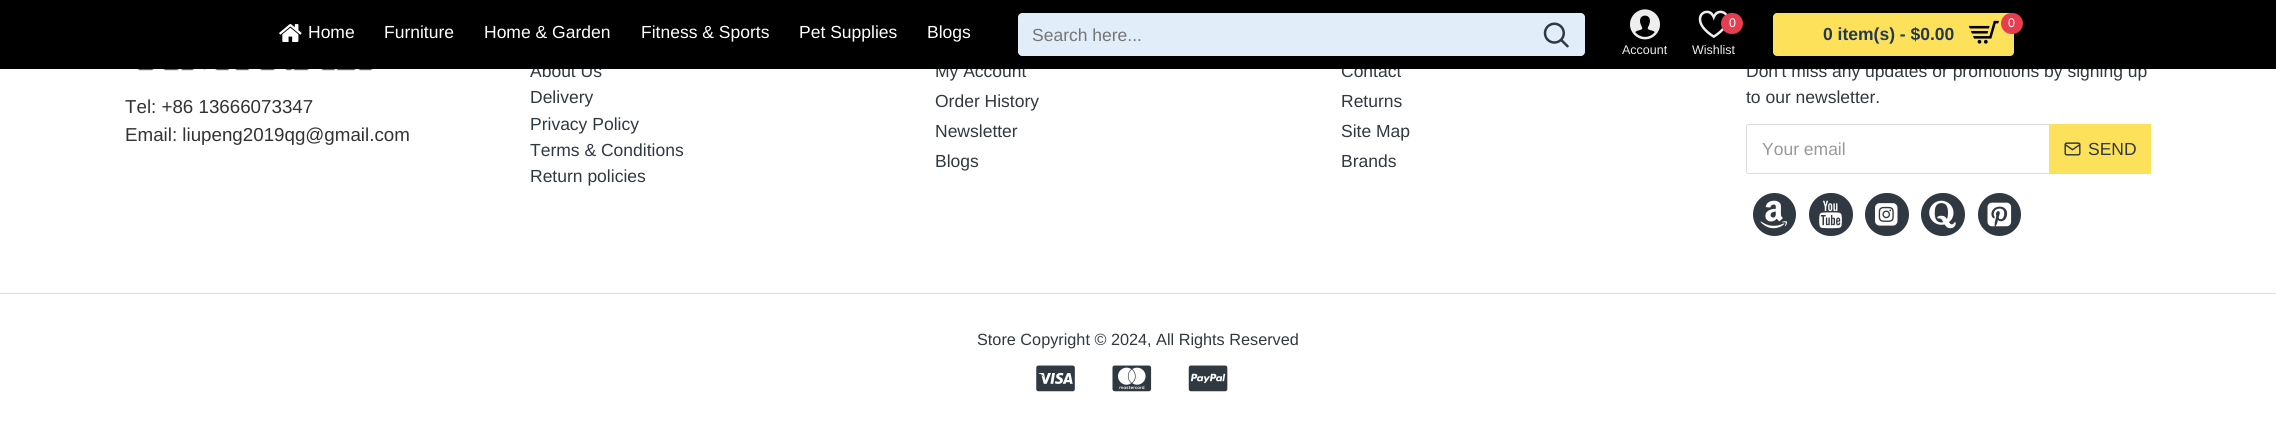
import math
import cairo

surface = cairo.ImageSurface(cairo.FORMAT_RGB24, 2276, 443)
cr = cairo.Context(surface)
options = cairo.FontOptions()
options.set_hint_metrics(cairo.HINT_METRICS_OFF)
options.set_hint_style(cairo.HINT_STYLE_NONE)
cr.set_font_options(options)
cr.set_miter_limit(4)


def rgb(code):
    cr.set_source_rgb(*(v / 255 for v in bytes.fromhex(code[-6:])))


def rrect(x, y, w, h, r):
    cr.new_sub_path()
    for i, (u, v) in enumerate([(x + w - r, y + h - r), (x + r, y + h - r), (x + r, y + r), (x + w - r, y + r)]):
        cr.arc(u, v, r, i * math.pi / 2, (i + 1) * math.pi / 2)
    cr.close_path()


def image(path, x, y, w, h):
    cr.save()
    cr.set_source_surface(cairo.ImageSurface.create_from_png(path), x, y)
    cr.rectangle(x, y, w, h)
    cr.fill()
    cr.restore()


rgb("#ffffff")
cr.paint()
image("img/6.png", 137, 69, 261, 2)
rrect(1746.5, 124.5, 404, 49, 2)
rgb("#dddddd")
cr.set_line_width(1)
cr.stroke()
rgb("#fee15b")
cr.rectangle(2049, 124, 102, 50)
cr.fill()
image("img/7.png", 2064, 142, 17, 14)
rgb("#303841")
cr.arc(1774.5, 214.5, 21.5, 0, 2 * math.pi)
cr.fill()
image("img/8.png", 1760, 200, 28, 29)
rrect(1809, 193, 44, 43, 21.5)
cr.fill()
image("img/9.png", 1819, 200, 23, 29)
rrect(1865, 193, 44, 43, 21.5)
cr.fill()
image("img/10.png", 1875, 203, 23, 23)
rrect(1921, 193, 44, 43, 21.5)
cr.fill()
image("img/11.png", 1929, 200, 27, 29)
cr.arc(1999.5, 214.5, 21.5, 0, 2 * math.pi)
cr.fill()
image("img/12.png", 1987, 202, 25, 25)
rgb("#dddddd")
cr.rectangle(0, 293, 2276, 1)
cr.fill()
image("img/13.png", 1036, 365, 39, 27)
image("img/14.png", 1112, 365, 40, 27)
image("img/15.png", 1188, 365, 40, 27)
cr.select_font_face("Liberation Sans")
cr.set_font_size(18.75)
rgb("#333333")
cr.move_to(125, 113)
cr.show_text("Tel: +86 13666073347")
cr.move_to(125, 141)
cr.show_text("Email: liupeng2019qg@gmail.com")
cr.set_font_size(17.5)
rgb("#303841")
for x, y, s in [
    (530, 77, "About Us"),
    (530, 103, "Delivery"),
    (530, 130, "Privacy Policy"),
    (530, 156, "Terms & Conditions"),
    (530, 182, "Return policies"),
    (935, 77, "My Account"),
    (935, 107, "Order History"),
    (935, 137, "Newsletter"),
    (935, 167, "Blogs"),
    (1341, 77, "Contact"),
    (1341, 107, "Returns"),
    (1341, 137, "Site Map"),
    (1341, 167, "Brands"),
    (1746, 77, "Don't miss any updates or promotions by signing up"),
]:
    cr.move_to(x, y)
    cr.show_text(s)
rgb("#000000")
cr.rectangle(0, 0, 2276, 69)
cr.fill()
rgb("#fee15b")
rrect(1773, 13, 241, 43, 4)
cr.fill()
rgb("#e73d50")
rrect(2001, 13, 22, 21, 10.5)
cr.fill()
cr.set_font_size(12.5)
rgb("#ffffff")
cr.move_to(2008, 27)
cr.show_text("0")
rgb("#e1eefa")
cr.new_path()
cr.move_to(1529, 13)
cr.line_to(1581, 13)
cr.curve_to(1583, 13, 1585, 15, 1585, 17)
cr.line_to(1585, 52)
cr.curve_to(1585, 54, 1583, 56, 1581, 56)
cr.line_to(1529, 56)
cr.close_path()
cr.fill()
image("img/2.png", 1543, 22, 26, 26)
cr.new_path()
cr.move_to(1022, 13)
cr.line_to(1529, 13)
cr.line_to(1529, 56)
cr.line_to(1022, 56)
cr.curve_to(1020, 56, 1018, 54, 1018, 52)
cr.line_to(1018, 17)
cr.curve_to(1018, 15, 1020, 13, 1022, 13)
cr.close_path()
cr.fill()
cr.set_font_size(17.5)
rgb("#757575")
cr.move_to(1032, 41)
cr.show_text("Search here...")
image("img/5.png", 1968, 20, 31, 24)
cr.select_font_face("Liberation Sans", cairo.FONT_SLANT_NORMAL, cairo.FONT_WEIGHT_BOLD)
rgb("#233851")
cr.move_to(1823, 40)
cr.show_text("0 item(s) - $0.00")
image("img/4.png", 1698, 10, 29, 28)
rgb("#e73d50")
rrect(1721, 13, 22, 21, 10.5)
cr.fill()
cr.select_font_face("Liberation Sans")
cr.set_font_size(12.5)
rgb("#ffffff")
cr.move_to(1729, 27)
cr.show_text("0")
rgb("#eeeeee")
cr.move_to(1692, 54)
cr.show_text("Wishlist")
image("img/3.png", 1630, 9, 30, 31)
cr.move_to(1622, 54)
cr.show_text("Account")
cr.set_font_size(17.5)
rgb("#ffffff")
for x, y, s in [
    (927, 38, "Blogs"),
    (799, 38, "Pet Supplies"),
    (641, 38, "Fitness & Sports"),
    (484, 38, "Home & Garden"),
    (384, 38, "Furniture"),
]:
    cr.move_to(x, y)
    cr.show_text(s)
image("img/1.png", 279, 24, 23, 18)
cr.move_to(308, 38)
cr.show_text("Home")
rgb("#303841")
cr.move_to(1746, 103)
cr.show_text("to our newsletter.")
rgb("#999999")
cr.move_to(1762, 155)
cr.show_text("Your email")
rgb("#303841")
cr.move_to(2088, 155)
cr.show_text("SEND")
cr.set_font_size(16.25)
cr.move_to(977, 345)
cr.show_text("Store Copyright © 2024, All Rights Reserved")
surface.write_to_png("page.png")
